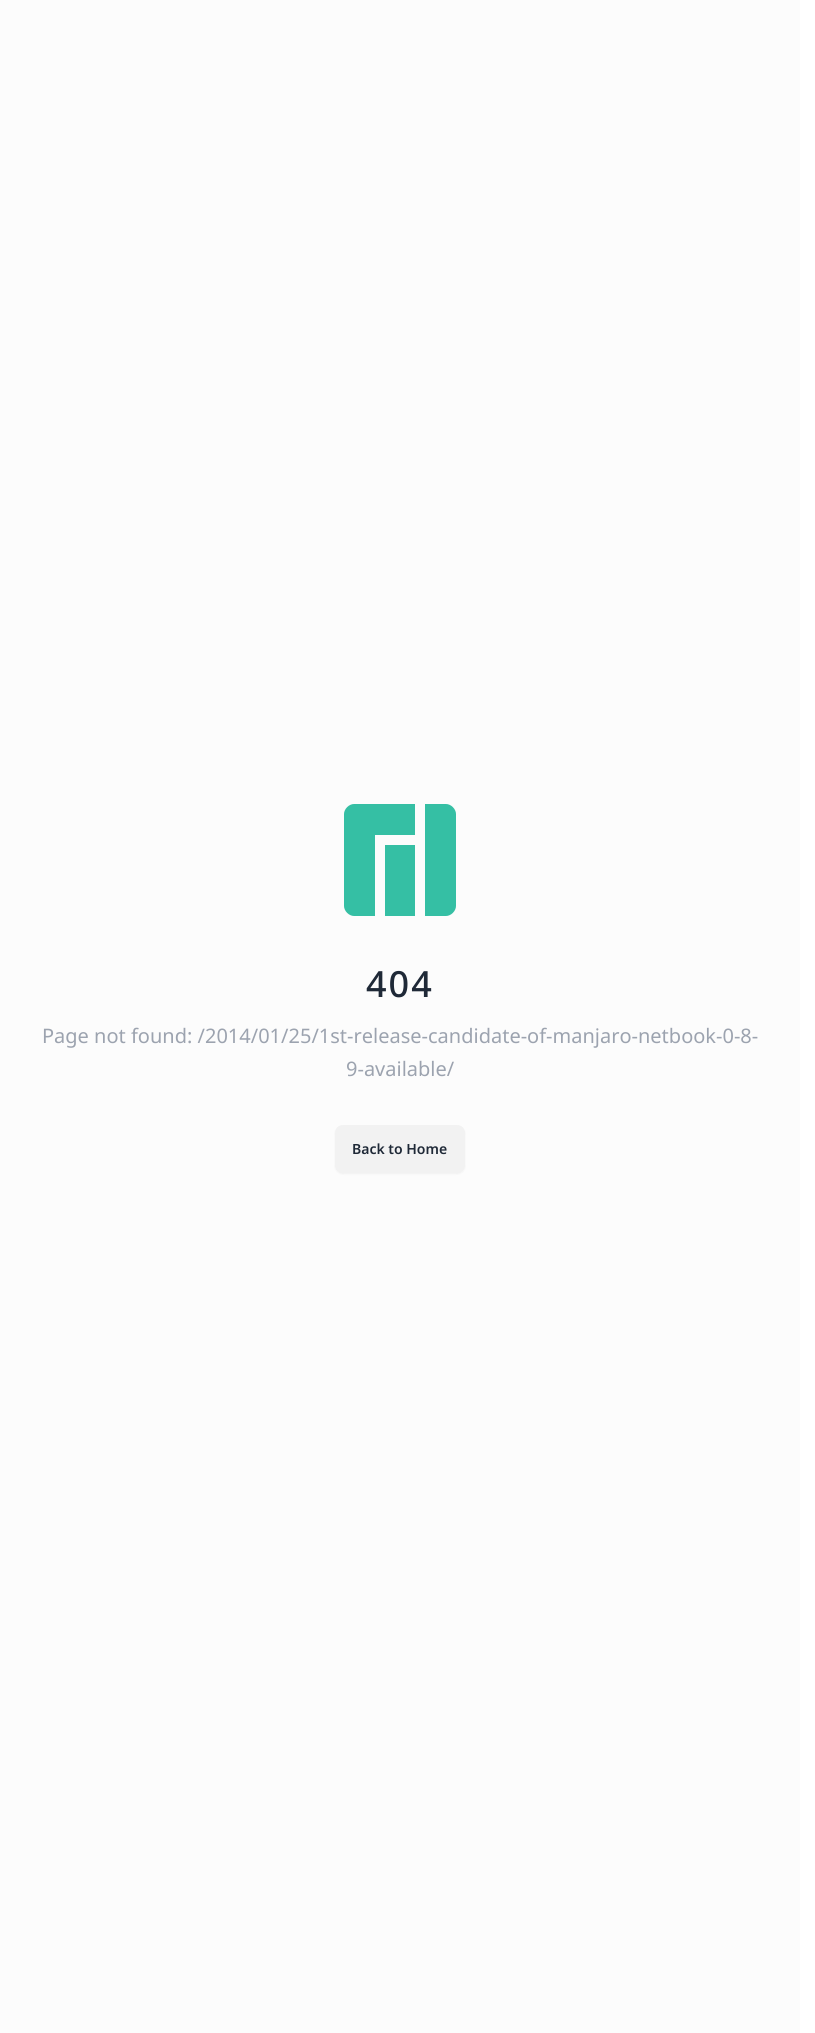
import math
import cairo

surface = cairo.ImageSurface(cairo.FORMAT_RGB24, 815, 2033)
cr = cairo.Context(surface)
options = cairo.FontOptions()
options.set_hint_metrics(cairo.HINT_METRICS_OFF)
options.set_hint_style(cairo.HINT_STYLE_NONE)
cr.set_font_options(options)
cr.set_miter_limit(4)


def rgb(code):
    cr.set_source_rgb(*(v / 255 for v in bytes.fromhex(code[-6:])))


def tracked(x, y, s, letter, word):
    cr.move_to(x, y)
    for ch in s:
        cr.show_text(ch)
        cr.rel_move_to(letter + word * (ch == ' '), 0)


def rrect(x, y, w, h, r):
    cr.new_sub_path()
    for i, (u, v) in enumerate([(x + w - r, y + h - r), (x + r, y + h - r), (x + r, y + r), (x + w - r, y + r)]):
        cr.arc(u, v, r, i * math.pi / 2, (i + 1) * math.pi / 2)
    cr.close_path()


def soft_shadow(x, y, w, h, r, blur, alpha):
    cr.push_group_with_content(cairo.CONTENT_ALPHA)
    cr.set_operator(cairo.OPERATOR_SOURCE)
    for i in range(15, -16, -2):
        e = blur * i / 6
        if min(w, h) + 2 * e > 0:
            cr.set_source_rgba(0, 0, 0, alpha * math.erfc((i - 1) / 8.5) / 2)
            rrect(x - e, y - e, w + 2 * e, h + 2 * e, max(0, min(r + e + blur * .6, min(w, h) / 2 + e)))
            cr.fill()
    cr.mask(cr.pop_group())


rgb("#ffffff")
cr.paint()
rgb("#fcfcfc")
cr.rectangle(0, 0, 800, 2033)
cr.fill()
rgb("#35bfa4")
cr.set_fill_rule(cairo.FILL_RULE_EVEN_ODD)
cr.new_path()
cr.move_to(354, 804)
cr.curve_to(349, 804, 344, 809, 344, 814)
cr.line_to(344, 906)
cr.curve_to(344, 911, 349, 916, 354, 916)
cr.line_to(375, 916)
cr.line_to(375, 835)
cr.line_to(415, 835)
cr.line_to(415, 804)
cr.close_path()
cr.move_to(425, 804)
cr.line_to(425, 916)
cr.line_to(446, 916)
cr.curve_to(451, 916, 456, 911, 456, 906)
cr.line_to(456, 814)
cr.curve_to(456, 809, 451, 804, 446, 804)
cr.close_path()
cr.move_to(385, 845)
cr.line_to(385, 916)
cr.line_to(415, 916)
cr.line_to(415, 845)
cr.close_path()
cr.fill()
rgb("#000000")
soft_shadow(335, 1126, 130, 48, 8, 1, 0.05)
rgb("#f2f2f2")
rrect(335, 1125, 130, 48, 8)
cr.fill()
cr.select_font_face("Noto Sans Medium")
cr.set_font_size(36)
rgb("#1f2937")
tracked(366, 997, "404", 2, 0)
cr.select_font_face("Noto Sans")
cr.set_font_size(20)
rgb("#9ca3af")
cr.move_to(42, 1043)
cr.show_text("Page not found: /2014/01/25/1st-release-candidate-of-manjaro-netbook-0-8-")
cr.move_to(346, 1076)
cr.show_text("9-available/")
cr.select_font_face("Noto Sans SemiBold")
cr.set_font_size(14)
rgb("#1f2937")
cr.move_to(352, 1154)
cr.show_text("Back to Home")
surface.write_to_png("page.png")
